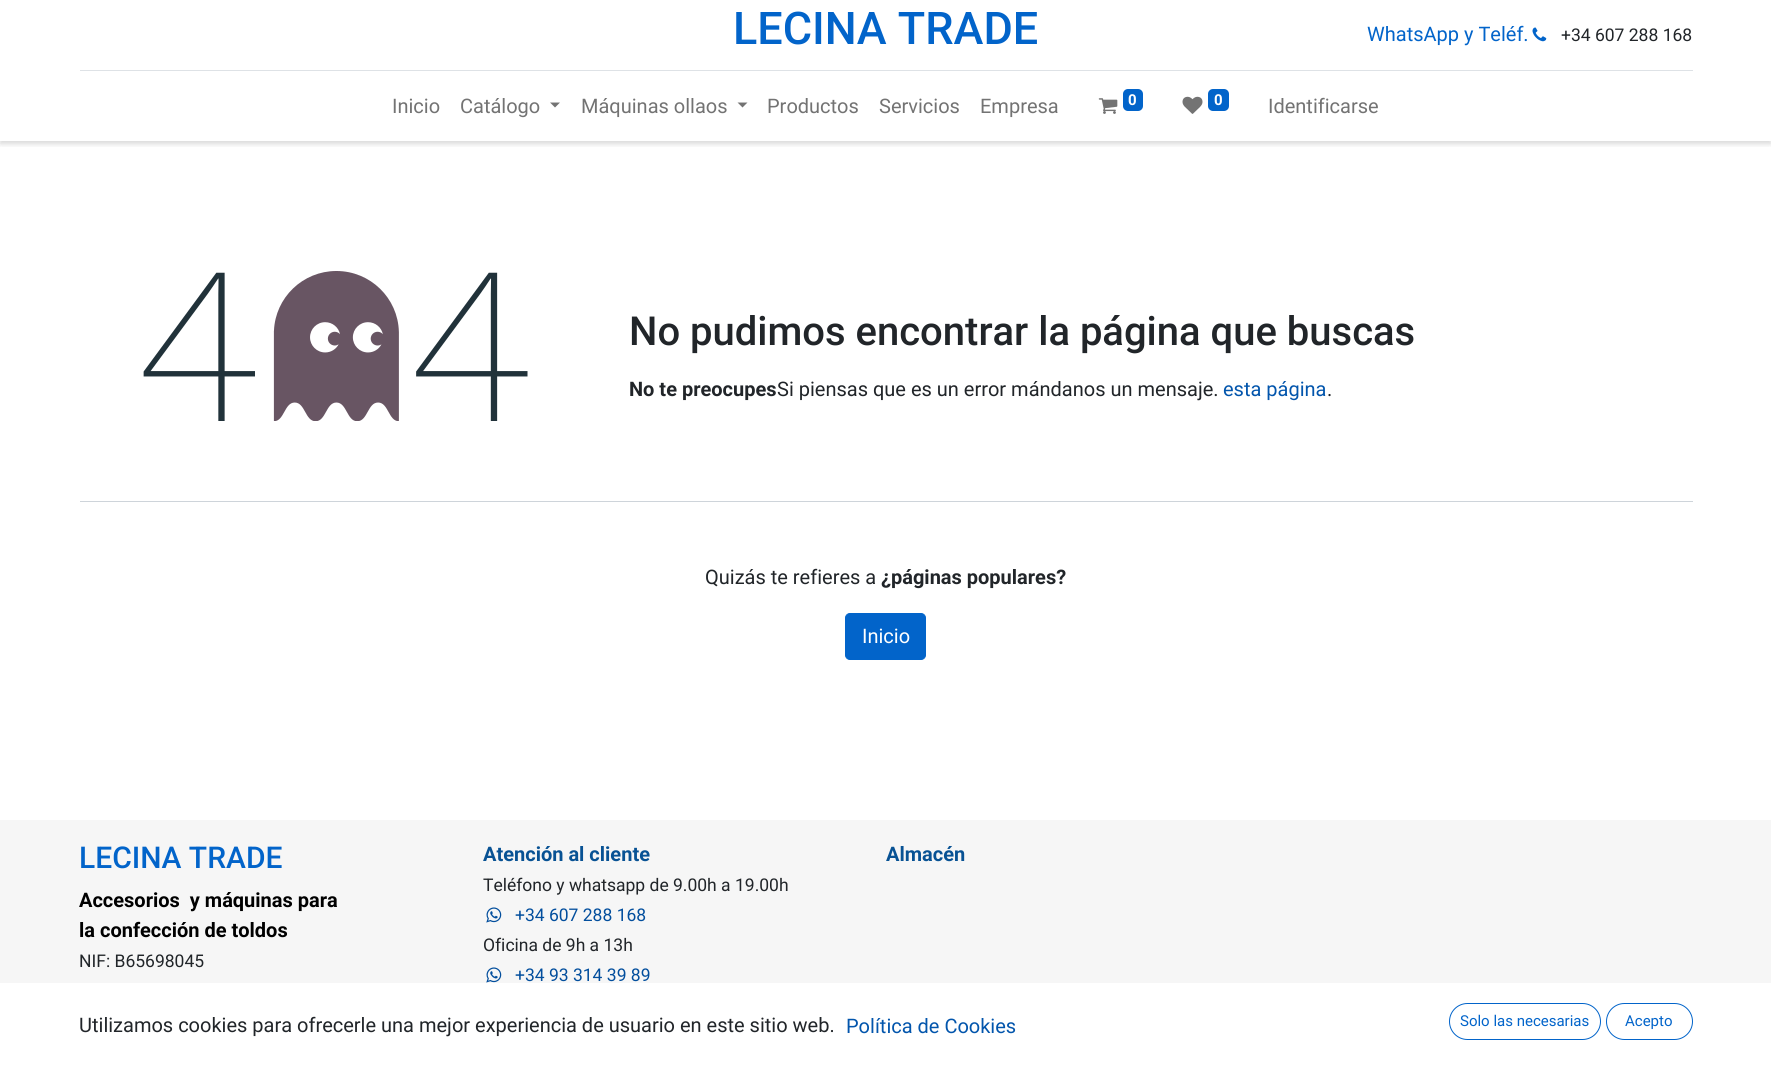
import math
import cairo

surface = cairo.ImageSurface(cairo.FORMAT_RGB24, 1771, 1069)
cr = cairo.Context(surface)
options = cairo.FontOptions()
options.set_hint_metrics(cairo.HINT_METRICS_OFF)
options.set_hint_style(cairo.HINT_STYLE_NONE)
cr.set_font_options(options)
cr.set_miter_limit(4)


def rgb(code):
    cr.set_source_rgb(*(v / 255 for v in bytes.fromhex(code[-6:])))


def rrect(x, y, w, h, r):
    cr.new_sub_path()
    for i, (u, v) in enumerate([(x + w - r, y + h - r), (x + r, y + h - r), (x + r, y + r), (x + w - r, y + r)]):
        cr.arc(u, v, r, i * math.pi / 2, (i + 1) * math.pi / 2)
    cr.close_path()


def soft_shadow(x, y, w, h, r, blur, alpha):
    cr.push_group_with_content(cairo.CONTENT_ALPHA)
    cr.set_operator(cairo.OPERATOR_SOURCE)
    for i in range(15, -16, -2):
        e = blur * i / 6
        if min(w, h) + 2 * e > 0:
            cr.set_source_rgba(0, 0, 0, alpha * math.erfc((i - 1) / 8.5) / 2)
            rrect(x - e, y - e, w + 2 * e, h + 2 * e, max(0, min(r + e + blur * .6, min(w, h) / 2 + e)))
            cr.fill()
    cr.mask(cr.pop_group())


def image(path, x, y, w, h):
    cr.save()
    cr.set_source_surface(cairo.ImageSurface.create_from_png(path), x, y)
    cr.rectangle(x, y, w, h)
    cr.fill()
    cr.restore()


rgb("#ffffff")
cr.paint()
cr.save()
cr.rectangle(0, 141, 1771, 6)
cr.clip()
rgb("#000000")
soft_shadow(0, 3, 1771, 141, 0, 2.5, 0.15)
cr.restore()
image("img/1.png", 1532, 27, 15, 15)
rgb("#dee2e6")
cr.rectangle(80, 70, 1613, 1)
cr.fill()
rgb("#737373")
cr.new_path()
cr.move_to(550, 102.5)
cr.line_to(560, 102.5)
cr.line_to(555, 107.5)
cr.close_path()
cr.fill()
cr.new_path()
cr.move_to(737.5, 102.5)
cr.line_to(747.5, 102.5)
cr.line_to(742.5, 107.5)
cr.close_path()
cr.fill()
image("img/2.png", 1098, 98, 20, 16)
rgb("#0264ca")
rrect(1123, 89, 20, 22, 5)
cr.fill()
image("img/3.png", 1182, 96, 21, 18)
rrect(1208, 89, 21, 22, 5)
cr.fill()
image("img/4.png", 143, 271, 385, 150)
rgb("#ced4da")
cr.rectangle(80, 501, 1613, 1)
cr.fill()
rgb("#0264ca")
rrect(845.5, 613.5, 80, 46, 4.5)
cr.fill_preserve()
cr.set_line_width(1)
cr.stroke()
rgb("#f6f6f6")
cr.rectangle(0, 820, 1771, 163)
cr.fill()
image("img/5.png", 486, 907, 16, 16)
image("img/5.png", 486, 967, 16, 16)
rrect(1449.5, 1003.5, 151, 36, 18)
rgb("#0264ca")
cr.stroke()
rrect(1606.5, 1003.5, 86, 36, 18)
cr.stroke()
cr.select_font_face("Roboto Medium")
cr.set_font_size(45)
cr.move_to(733, 44)
cr.show_text("LECINA TRADE")
cr.select_font_face("Roboto")
cr.set_font_size(20)
cr.move_to(1367, 41)
cr.show_text("WhatsApp y Teléf.")
cr.set_font_size(17.5)
rgb("#212529")
cr.move_to(1561, 41)
cr.show_text("+34 607 288 168")
cr.set_font_size(20)
rgb("#737373")
for x, y, s in [
    (392, 113, "Inicio"),
    (460, 113, "Catálogo"),
    (581, 113, "Máquinas ollaos"),
    (767, 113, "Productos"),
    (879, 113, "Servicios"),
    (980, 113, "Empresa"),
]:
    cr.move_to(x, y)
    cr.show_text(s)
cr.select_font_face("Roboto", cairo.FONT_SLANT_NORMAL, cairo.FONT_WEIGHT_BOLD)
cr.set_font_size(15)
rgb("#ffffff")
cr.move_to(1128, 105)
cr.show_text("0")
cr.move_to(1214, 105)
cr.show_text("0")
cr.select_font_face("Roboto")
cr.set_font_size(20)
rgb("#737373")
cr.move_to(1268, 113)
cr.show_text("Identificarse")
cr.select_font_face("Roboto Medium")
cr.set_font_size(40)
rgb("#212529")
cr.move_to(629, 345)
cr.show_text("No pudimos encontrar la página que buscas")
cr.select_font_face("Roboto", cairo.FONT_SLANT_NORMAL, cairo.FONT_WEIGHT_BOLD)
cr.set_font_size(20)
cr.move_to(629, 396)
cr.show_text("No te preocupes")
cr.select_font_face("Roboto")
cr.move_to(777, 396)
cr.show_text("Si piensas que es un error mándanos un mensaje.")
rgb("#0255ac")
cr.move_to(1223, 396)
cr.show_text("esta página")
rgb("#212529")
cr.move_to(1327, 396)
cr.show_text(".")
cr.move_to(705, 584)
cr.show_text("Quizás te refieres a")
cr.select_font_face("Roboto", cairo.FONT_SLANT_NORMAL, cairo.FONT_WEIGHT_BOLD)
cr.move_to(881, 584)
cr.show_text("¿páginas populares?")
cr.select_font_face("Roboto")
rgb("#ffffff")
cr.move_to(862, 643)
cr.show_text("Inicio")
cr.select_font_face("Roboto Medium")
cr.set_font_size(30)
rgb("#0264ca")
cr.move_to(79, 868)
cr.show_text("LECINA TRADE")
cr.select_font_face("Roboto", cairo.FONT_SLANT_NORMAL, cairo.FONT_WEIGHT_BOLD)
cr.set_font_size(20)
rgb("#000000")
cr.move_to(79, 907)
cr.show_text("Accesorios  y máquinas para")
cr.move_to(79, 937)
cr.show_text("la confección de toldos")
cr.select_font_face("Roboto")
cr.set_font_size(17.5)
rgb("#212529")
cr.move_to(79, 967)
cr.show_text("NIF: B65698045")
cr.select_font_face("Roboto", cairo.FONT_SLANT_NORMAL, cairo.FONT_WEIGHT_BOLD)
cr.set_font_size(20)
rgb("#085294")
cr.move_to(483, 861)
cr.show_text("Atención al cliente")
cr.select_font_face("Roboto")
cr.set_font_size(17.5)
rgb("#212529")
cr.move_to(483, 891)
cr.show_text("Teléfono y whatsapp de 9.00h a 19.00h")
rgb("#024e9d")
cr.move_to(515, 921)
cr.show_text("+34 607 288 168")
rgb("#212529")
cr.move_to(483, 951)
cr.show_text("Oficina de 9h a 13h")
rgb("#024e9d")
cr.move_to(515, 981)
cr.show_text("+34 93 314 39 89")
cr.select_font_face("Roboto", cairo.FONT_SLANT_NORMAL, cairo.FONT_WEIGHT_BOLD)
cr.set_font_size(20)
rgb("#085294")
cr.move_to(886, 861)
cr.show_text("Almacén")
cr.select_font_face("Roboto")
rgb("#212529")
cr.move_to(79, 1032)
cr.show_text("Utilizamos cookies para ofrecerle una mejor experiencia de usuario en este sitio web.")
rgb("#0255ac")
cr.move_to(846, 1033)
cr.show_text("Política de Cookies")
cr.set_font_size(15)
rgb("#0264ca")
cr.move_to(1460, 1026)
cr.show_text("Solo las necesarias")
cr.move_to(1625, 1026)
cr.show_text("Acepto")
surface.write_to_png("page.png")
